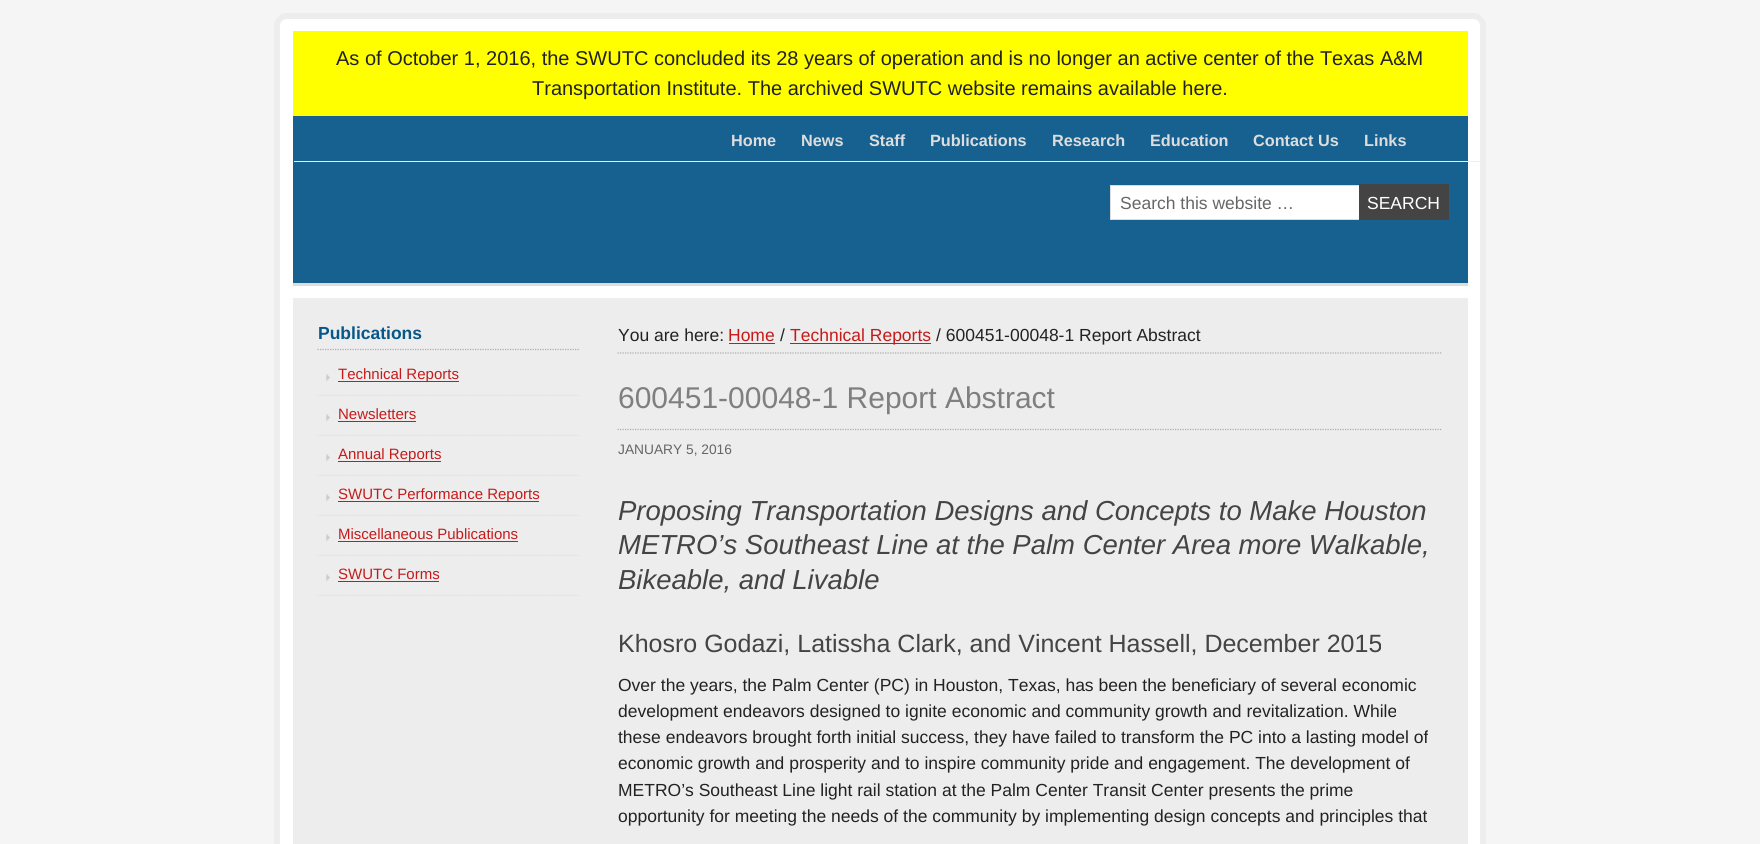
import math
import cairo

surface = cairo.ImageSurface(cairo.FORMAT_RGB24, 1760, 844)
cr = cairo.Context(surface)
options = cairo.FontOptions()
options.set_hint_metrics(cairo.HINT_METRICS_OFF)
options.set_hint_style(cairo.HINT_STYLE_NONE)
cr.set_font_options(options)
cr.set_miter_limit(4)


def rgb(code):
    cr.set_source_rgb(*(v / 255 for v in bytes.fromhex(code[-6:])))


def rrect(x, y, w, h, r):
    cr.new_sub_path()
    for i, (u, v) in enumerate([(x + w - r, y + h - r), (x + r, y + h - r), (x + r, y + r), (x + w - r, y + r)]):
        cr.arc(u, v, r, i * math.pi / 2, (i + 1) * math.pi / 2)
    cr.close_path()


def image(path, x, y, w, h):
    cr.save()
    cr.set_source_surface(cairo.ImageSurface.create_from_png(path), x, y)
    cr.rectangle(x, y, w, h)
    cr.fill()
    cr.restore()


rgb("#f5f5f5")
cr.paint()
rgb("#ffffff")
rrect(277, 16, 1206, 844, 10)
cr.fill_preserve()
rgb("#ededed")
cr.set_line_width(6)
cr.stroke()
for x, y, w, h, color in [
    (293, 31, 1175, 85, "#ffff00"),
    (293, 283, 1175, 3, "#dddddd"),
    (293, 116, 1175, 167, "#16618f"),
    (294, 161, 1186, 1, "#eeeeee"),
    (1111, 186, 248, 33, "#ffffff"),
]:
    rgb(color)
    cr.rectangle(x, y, w, h)
    cr.fill()
cr.rectangle(1110.5, 185.5, 257, 34)
rgb("#dddddd")
cr.set_line_width(1)
cr.stroke()
rgb("#444444")
cr.rectangle(1359, 184, 90, 36)
cr.fill()
rgb("#ededed")
cr.rectangle(293, 298, 1175, 546)
cr.fill()
cr.new_path()
cr.move_to(317.5, 349.5)
cr.line_to(580, 349.5)
rgb("#aaaaaa")
cr.set_line_width(1.2)
cr.set_dash([1.25, 1.25])
cr.stroke()
image("img/1.png", 326, 374, 4, 7)
cr.new_path()
cr.move_to(317.5, 395.5)
cr.line_to(580, 395.5)
rgb("#dddddd")
cr.stroke()
rgb("#c61a1a")
cr.rectangle(338, 381, 121, 1)
cr.fill()
image("img/1.png", 326, 414, 4, 7)
cr.new_path()
cr.move_to(317.5, 435.5)
cr.line_to(580, 435.5)
rgb("#dddddd")
cr.stroke()
rgb("#c61a1a")
cr.rectangle(338, 421, 78, 1)
cr.fill()
image("img/1.png", 326, 454, 4, 7)
cr.new_path()
cr.move_to(317.5, 475.5)
cr.line_to(580, 475.5)
rgb("#dddddd")
cr.stroke()
rgb("#c61a1a")
cr.rectangle(338, 461, 103, 1)
cr.fill()
image("img/1.png", 326, 494, 4, 7)
cr.new_path()
cr.move_to(317.5, 515.5)
cr.line_to(580, 515.5)
rgb("#dddddd")
cr.stroke()
rgb("#c61a1a")
cr.rectangle(338, 501, 201, 1)
cr.fill()
image("img/1.png", 326, 534, 4, 7)
cr.new_path()
cr.move_to(317.5, 555.5)
cr.line_to(580, 555.5)
rgb("#dddddd")
cr.stroke()
rgb("#c61a1a")
cr.rectangle(338, 541, 180, 1)
cr.fill()
image("img/1.png", 326, 574, 4, 7)
cr.new_path()
cr.move_to(317.5, 595.5)
cr.line_to(580, 595.5)
rgb("#dddddd")
cr.stroke()
rgb("#c61a1a")
cr.rectangle(338, 581, 101, 1)
cr.fill()
cr.new_path()
cr.move_to(617.5, 353)
cr.line_to(1442.5, 353)
rgb("#aaaaaa")
cr.stroke()
rgb("#c61a1a")
cr.rectangle(729, 343, 46, 1)
cr.fill()
cr.rectangle(790, 343, 141, 1)
cr.fill()
cr.new_path()
cr.move_to(617.5, 429.5)
cr.line_to(1442.5, 429.5)
rgb("#aaaaaa")
cr.stroke()
cr.select_font_face("Liberation Sans")
cr.set_font_size(20)
rgb("#222222")
cr.move_to(336, 65)
cr.show_text("As of October 1, 2016, the SWUTC concluded its 28 years of operation and is no longer an active center of the Texas A&M")
cr.move_to(532, 95)
cr.show_text("Transportation Institute. The archived SWUTC website remains available here.")
cr.select_font_face("Liberation Sans", cairo.FONT_SLANT_NORMAL, cairo.FONT_WEIGHT_BOLD)
cr.set_font_size(16.25)
rgb("#dddddd")
for x, y, s in [
    (731, 146, "Home"),
    (801, 146, "News"),
    (869, 146, "Staff"),
    (930, 146, "Publications"),
    (1052, 146, "Research"),
    (1150, 146, "Education"),
    (1253, 146, "Contact Us"),
    (1364, 146, "Links"),
]:
    cr.move_to(x, y)
    cr.show_text(s)
cr.select_font_face("Liberation Sans")
cr.set_font_size(17.5)
rgb("#666666")
cr.move_to(1120, 209)
cr.show_text("Search this website …")
rgb("#ffffff")
cr.move_to(1367, 209)
cr.show_text("SEARCH")
cr.select_font_face("Liberation Sans", cairo.FONT_SLANT_NORMAL, cairo.FONT_WEIGHT_BOLD)
rgb("#075788")
cr.move_to(318, 339)
cr.show_text("Publications")
cr.select_font_face("Liberation Sans")
cr.set_font_size(15)
rgb("#c61a1a")
for x, y, s in [
    (338, 379, "Technical Reports"),
    (338, 419, "Newsletters"),
    (338, 459, "Annual Reports"),
    (338, 499, "SWUTC Performance Reports"),
    (338, 539, "Miscellaneous Publications"),
    (338, 579, "SWUTC Forms"),
]:
    cr.move_to(x, y)
    cr.show_text(s)
cr.set_font_size(17.5)
rgb("#222222")
cr.move_to(618, 341)
cr.show_text("You are here:")
rgb("#c61a1a")
cr.move_to(728, 341)
cr.show_text("Home")
rgb("#222222")
cr.move_to(780, 341)
cr.show_text("/")
rgb("#c61a1a")
cr.move_to(790, 341)
cr.show_text("Technical Reports")
rgb("#222222")
cr.move_to(936, 341)
cr.show_text("/ 600451-00048-1 Report Abstract")
cr.set_font_size(30)
rgb("#7f7f7f")
cr.move_to(618, 408)
cr.show_text("600451-00048-1 Report Abstract")
cr.set_font_size(13.75)
rgb("#666666")
cr.move_to(618, 454)
cr.show_text("JANUARY 5, 2016")
cr.select_font_face("Liberation Sans", cairo.FONT_SLANT_ITALIC)
cr.set_font_size(27.5)
rgb("#444444")
for x, y, s in [
    (618, 520, "Proposing Transportation Designs and Concepts to Make Houston"),
    (618, 554, "METRO’s Southeast Line at the Palm Center Area more Walkable,"),
    (618, 589, "Bikeable, and Livable"),
]:
    cr.move_to(x, y)
    cr.show_text(s)
cr.select_font_face("Liberation Sans")
cr.set_font_size(25)
cr.move_to(618, 652)
cr.show_text("Khosro Godazi, Latissha Clark, and Vincent Hassell, December 2015")
cr.set_font_size(17.5)
rgb("#222222")
for x, y, s in [
    (618, 691, "Over the years, the Palm Center (PC) in Houston, Texas, has been the beneficiary of several economic"),
    (618, 717, "development endeavors designed to ignite economic and community growth and revitalization. While"),
    (618, 743, "these endeavors brought forth initial success, they have failed to transform the PC into a lasting model of"),
    (618, 769, "economic growth and prosperity and to inspire community pride and engagement. The development of"),
    (618, 796, "METRO’s Southeast Line light rail station at the Palm Center Transit Center presents the prime"),
    (618, 822, "opportunity for meeting the needs of the community by implementing design concepts and principles that"),
]:
    cr.move_to(x, y)
    cr.show_text(s)
surface.write_to_png("page.png")
